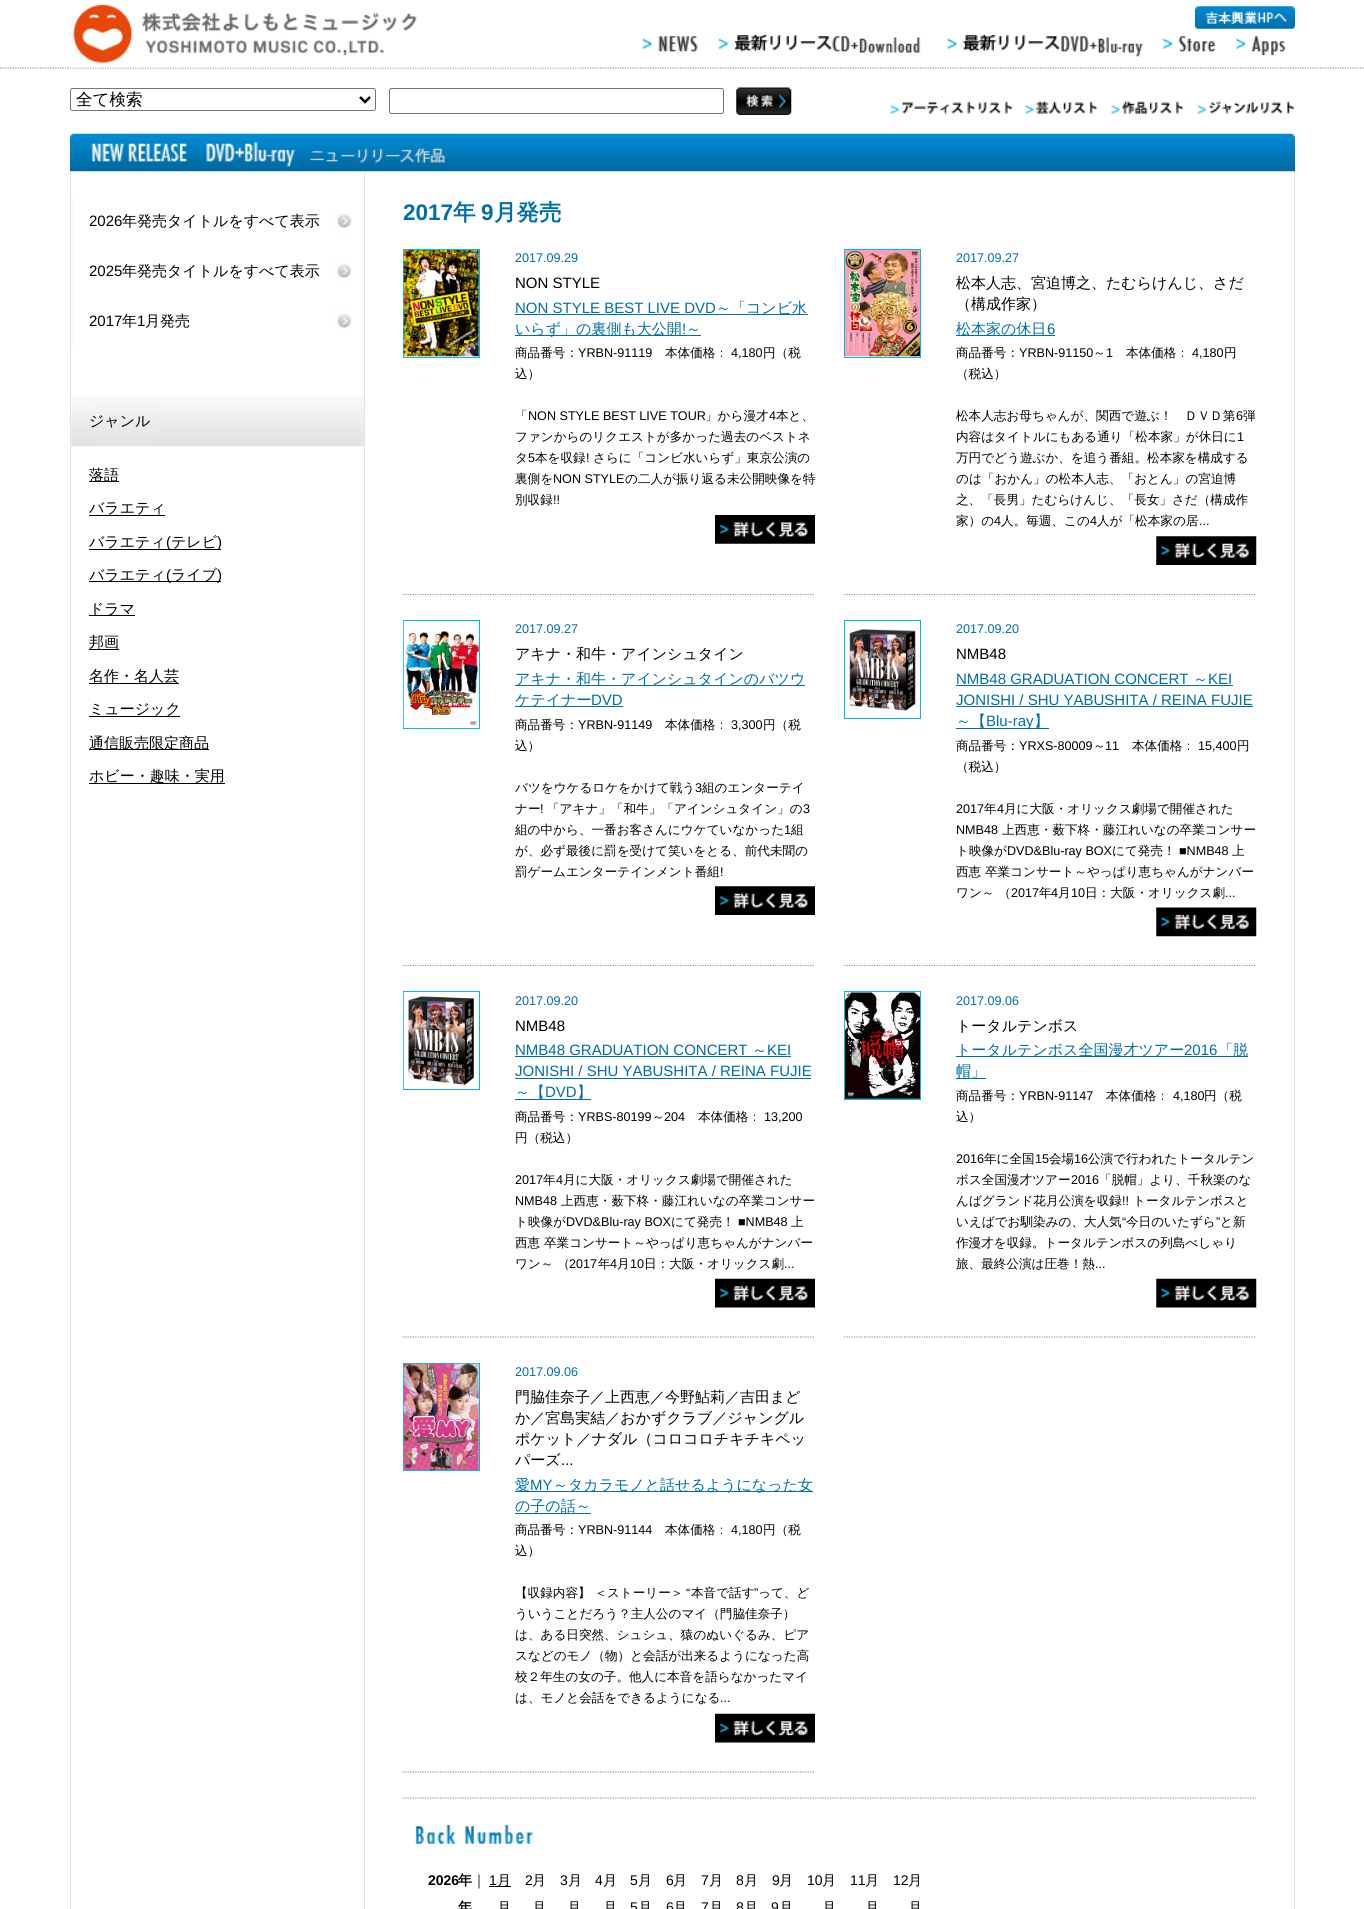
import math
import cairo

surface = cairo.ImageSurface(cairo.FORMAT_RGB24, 1364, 1909)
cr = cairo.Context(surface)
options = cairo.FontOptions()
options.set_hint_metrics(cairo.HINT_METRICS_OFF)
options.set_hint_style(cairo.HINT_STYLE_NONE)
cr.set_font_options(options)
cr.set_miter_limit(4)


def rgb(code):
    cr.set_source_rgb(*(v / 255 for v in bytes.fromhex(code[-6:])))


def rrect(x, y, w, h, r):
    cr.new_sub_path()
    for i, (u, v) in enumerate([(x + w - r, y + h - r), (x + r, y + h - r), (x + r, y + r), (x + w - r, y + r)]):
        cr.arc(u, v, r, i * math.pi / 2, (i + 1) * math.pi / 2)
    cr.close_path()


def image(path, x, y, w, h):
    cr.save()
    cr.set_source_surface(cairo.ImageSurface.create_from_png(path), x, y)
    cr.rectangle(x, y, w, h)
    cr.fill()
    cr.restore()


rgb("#ffffff")
cr.paint()
cr.new_path()
cr.move_to(0, 68)
cr.line_to(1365, 68)
rgb("#999999")
cr.set_line_width(1.2)
cr.set_dash([1.25, 1.25])
cr.stroke()
image("img/1.png", 70, 4, 513, 64)
image("img/2.png", 1195, 6, 100, 23)
image("img/3.png", 642, 36, 56, 16)
image("img/4.png", 718, 35, 203, 18)
image("img/5.png", 947, 35, 196, 22)
image("img/6.png", 1162, 36, 54, 16)
image("img/7.png", 1236, 36, 50, 20)
rrect(70.5, 88.5, 305, 22, 2)
rgb("#767676")
cr.set_line_width(1)
cr.set_dash([])
cr.stroke()
cr.new_path()
cr.move_to(360, 97)
cr.line_to(365, 102)
cr.line_to(370, 97)
rgb("#000000")
cr.set_line_width(2.5)
cr.stroke()
rrect(389.5, 88.5, 334, 25, 2)
rgb("#767676")
cr.set_line_width(1)
cr.stroke()
image("img/8.png", 736, 87, 56, 28)
image("img/9.png", 890, 101, 123, 13)
image("img/10.png", 1025, 101, 73, 13)
image("img/11.png", 1111, 101, 73, 13)
image("img/12.png", 1197, 101, 97, 13)
image("img/13.png", 70, 133, 1225, 39)
rgb("#e2e2e2")
cr.rectangle(1294, 171, 1, 1738)
cr.fill()
cr.rectangle(70, 171, 1, 1738)
cr.fill()
image("img/14.png", 71, 196, 281, 50)
image("img/14.png", 71, 246, 281, 50)
image("img/14.png", 71, 296, 281, 50)
image("img/15.png", 71, 396, 293, 51)
for x, y, w, h, color in [
    (89, 481, 30, 1, "#000000"),
    (89, 515, 76, 1, "#000000"),
    (89, 549, 132, 1, "#000000"),
    (89, 581, 132, 1, "#000000"),
    (89, 615, 46, 1, "#000000"),
    (89, 649, 30, 1, "#000000"),
    (89, 683, 90, 1, "#000000"),
    (89, 716, 91, 1, "#000000"),
    (89, 749, 120, 1, "#000000"),
    (89, 783, 136, 1, "#000000"),
    (364, 171, 1, 1738, "#e2e2e2"),
]:
    rgb(color)
    cr.rectangle(x, y, w, h)
    cr.fill()
cr.new_path()
cr.move_to(402.5, 594.5)
cr.line_to(815, 594.5)
rgb("#999999")
cr.set_line_width(1.2)
cr.set_dash([1.25, 1.25])
cr.stroke()
cr.rectangle(403.5, 249.5, 76, 108)
rgb("#00b9e7")
cr.set_line_width(1)
cr.set_dash([])
cr.stroke()
image("img/16.png", 403, 250, 76, 107)
rgb("#006ea8")
cr.rectangle(515, 314, 293, 1)
cr.fill()
cr.rectangle(515, 335, 186, 1)
cr.fill()
image("img/17.png", 715, 515, 100, 29)
cr.new_path()
cr.move_to(844, 594.5)
cr.line_to(1256, 594.5)
rgb("#999999")
cr.set_line_width(1.2)
cr.set_dash([1.25, 1.25])
cr.stroke()
cr.rectangle(844.5, 249.5, 76, 108)
rgb("#00b9e7")
cr.set_line_width(1)
cr.set_dash([])
cr.stroke()
image("img/18.png", 845, 250, 75, 107)
rgb("#006ea8")
cr.rectangle(956, 335, 99, 1)
cr.fill()
image("img/19.png", 1156, 536, 101, 29)
cr.new_path()
cr.move_to(402.5, 965.5)
cr.line_to(815, 965.5)
rgb("#999999")
cr.set_line_width(1.2)
cr.set_dash([1.25, 1.25])
cr.stroke()
cr.rectangle(403.5, 620.5, 76, 108)
rgb("#00b9e7")
cr.set_line_width(1)
cr.set_dash([])
cr.stroke()
image("img/20.png", 403, 621, 76, 107)
rgb("#006ea8")
cr.rectangle(515, 685, 290, 1)
cr.fill()
cr.rectangle(515, 706, 108, 1)
cr.fill()
image("img/21.png", 715, 886, 100, 29)
cr.new_path()
cr.move_to(844, 965.5)
cr.line_to(1256, 965.5)
rgb("#999999")
cr.set_line_width(1.2)
cr.set_dash([1.25, 1.25])
cr.stroke()
cr.rectangle(844.5, 620.5, 76, 98)
rgb("#00b9e7")
cr.set_line_width(1)
cr.set_dash([])
cr.stroke()
image("img/22.png", 849, 629, 67, 82)
for x, y, w, h, color in [
    (956, 685, 277, 1, "#006ea8"),
    (956, 706, 297, 1, "#006ea8"),
    (956, 728, 93, 1, "#006ea8"),
]:
    rgb(color)
    cr.rectangle(x, y, w, h)
    cr.fill()
image("img/23.png", 1156, 907, 101, 30)
cr.new_path()
cr.move_to(402.5, 1337)
cr.line_to(815, 1337)
rgb("#999999")
cr.set_line_width(1.2)
cr.set_dash([1.25, 1.25])
cr.stroke()
cr.rectangle(403.5, 991.5, 76, 98)
rgb("#00b9e7")
cr.set_line_width(1)
cr.set_dash([])
cr.stroke()
image("img/24.png", 403, 992, 71, 97)
for x, y, w, h, color in [
    (515, 1056, 276, 1, "#006ea8"),
    (515, 1078, 296, 1, "#006ea8"),
    (515, 1099, 76, 1, "#006ea8"),
]:
    rgb(color)
    cr.rectangle(x, y, w, h)
    cr.fill()
image("img/25.png", 715, 1278, 100, 30)
cr.new_path()
cr.move_to(844, 1337)
cr.line_to(1256, 1337)
rgb("#999999")
cr.set_line_width(1.2)
cr.set_dash([1.25, 1.25])
cr.stroke()
cr.rectangle(844.5, 991.5, 76, 108)
rgb("#00b9e7")
cr.set_line_width(1)
cr.set_dash([])
cr.stroke()
image("img/26.png", 845, 992, 75, 107)
rgb("#006ea8")
cr.rectangle(956, 1056, 292, 1)
cr.fill()
cr.rectangle(956, 1078, 30, 1)
cr.fill()
image("img/27.png", 1156, 1278, 101, 30)
cr.new_path()
cr.move_to(402.5, 1772)
cr.line_to(815, 1772)
rgb("#999999")
cr.set_line_width(1.2)
cr.set_dash([1.25, 1.25])
cr.stroke()
cr.rectangle(403.5, 1363.5, 76, 107)
rgb("#00b9e7")
cr.set_line_width(1)
cr.set_dash([])
cr.stroke()
image("img/28.png", 403, 1363, 76, 107)
rgb("#006ea8")
cr.rectangle(515, 1491, 298, 1)
cr.fill()
cr.rectangle(515, 1513, 76, 1)
cr.fill()
image("img/25.png", 715, 1713, 100, 30)
cr.new_path()
cr.move_to(402.5, 1798)
cr.line_to(1256, 1798)
rgb("#999999")
cr.set_line_width(1.2)
cr.set_dash([1.25, 1.25])
cr.stroke()
image("img/29.png", 415, 1823, 120, 21)
rgb("#000000")
cr.rectangle(489, 1886, 22, 1)
cr.fill()
cr.select_font_face("WenQuanYi Zen Hei Medium")
cr.set_font_size(16.5)
cr.move_to(76, 105)
cr.show_text("全て検索")
cr.select_font_face("Liberation Sans")
cr.set_font_size(15)
cr.move_to(89, 226)
cr.show_text("2026")
cr.select_font_face("WenQuanYi Zen Hei Medium")
cr.move_to(122, 226)
cr.show_text("年発売タイトルをすべて表示")
cr.select_font_face("Liberation Sans")
cr.move_to(89, 276)
cr.show_text("2025")
cr.select_font_face("WenQuanYi Zen Hei Medium")
cr.move_to(122, 276)
cr.show_text("年発売タイトルをすべて表示")
cr.select_font_face("Liberation Sans")
cr.move_to(89, 326)
cr.show_text("2017")
cr.select_font_face("WenQuanYi Zen Hei Medium")
cr.move_to(122, 326)
cr.show_text("年")
cr.select_font_face("Liberation Sans")
cr.move_to(137, 326)
cr.show_text("1")
cr.select_font_face("WenQuanYi Zen Hei Medium")
for x, y, s in [
    (145, 326, "月発売"),
    (89, 426, "ジャンル"),
    (89, 480, "落語"),
    (89, 513, "バラエティ"),
    (89, 547, "バラエティ"),
]:
    cr.move_to(x, y)
    cr.show_text(s)
cr.select_font_face("Liberation Sans")
cr.move_to(166, 547)
cr.show_text("(")
cr.select_font_face("WenQuanYi Zen Hei Medium")
cr.move_to(171, 547)
cr.show_text("テレビ")
cr.select_font_face("Liberation Sans")
cr.move_to(217, 547)
cr.show_text(")")
cr.select_font_face("WenQuanYi Zen Hei Medium")
cr.move_to(89, 580)
cr.show_text("バラエティ")
cr.select_font_face("Liberation Sans")
cr.move_to(166, 580)
cr.show_text("(")
cr.select_font_face("WenQuanYi Zen Hei Medium")
cr.move_to(171, 580)
cr.show_text("ライブ")
cr.select_font_face("Liberation Sans")
cr.move_to(217, 580)
cr.show_text(")")
cr.select_font_face("WenQuanYi Zen Hei Medium")
for x, y, s in [
    (89, 614, "ドラマ"),
    (89, 647, "邦画"),
    (89, 681, "名作・名人芸"),
    (89, 714, "ミュージック"),
    (89, 748, "通信販売限定商品"),
    (89, 781, "ホビー・趣味・実用"),
]:
    cr.move_to(x, y)
    cr.show_text(s)
cr.select_font_face("Liberation Sans", cairo.FONT_SLANT_NORMAL, cairo.FONT_WEIGHT_BOLD)
cr.set_font_size(22.5)
rgb("#006ea8")
cr.move_to(403, 220)
cr.show_text("2017")
cr.select_font_face("WenQuanYi Zen Hei", cairo.FONT_SLANT_NORMAL, cairo.FONT_WEIGHT_BOLD)
cr.move_to(453, 220)
cr.show_text("年")
cr.select_font_face("Liberation Sans", cairo.FONT_SLANT_NORMAL, cairo.FONT_WEIGHT_BOLD)
cr.move_to(481, 220)
cr.show_text("9")
cr.select_font_face("WenQuanYi Zen Hei", cairo.FONT_SLANT_NORMAL, cairo.FONT_WEIGHT_BOLD)
cr.move_to(494, 220)
cr.show_text("月発売")
cr.select_font_face("Liberation Sans")
cr.set_font_size(12.6)
cr.move_to(515, 262)
cr.show_text("2017.09.29")
cr.set_font_size(15)
rgb("#000000")
cr.move_to(515, 288)
cr.show_text("NON STYLE")
rgb("#006ea8")
cr.move_to(515, 313)
cr.show_text("NON STYLE BEST LIVE DVD")
cr.select_font_face("WenQuanYi Zen Hei Medium")
cr.move_to(716, 313)
cr.show_text("～「コンビ水")
cr.move_to(515, 334)
cr.show_text("いらず」の裏側も大公開")
cr.select_font_face("Liberation Sans")
cr.move_to(682, 334)
cr.show_text("!")
cr.select_font_face("WenQuanYi Zen Hei Medium")
cr.move_to(686, 334)
cr.show_text("～")
cr.set_font_size(12.6)
rgb("#000000")
cr.move_to(515, 357)
cr.show_text("商品番号：")
cr.select_font_face("Liberation Sans")
cr.move_to(578, 357)
cr.show_text("YRBN-91119")
cr.select_font_face("WenQuanYi Zen Hei Medium")
cr.move_to(665, 357)
cr.show_text("本体価格：")
cr.select_font_face("Liberation Sans")
cr.move_to(731, 357)
cr.show_text("4,180")
cr.select_font_face("WenQuanYi Zen Hei Medium")
for x, y, s in [
    (763, 357, "円（税"),
    (515, 378, "込）"),
    (515, 420, "「"),
]:
    cr.move_to(x, y)
    cr.show_text(s)
cr.select_font_face("Liberation Sans")
cr.move_to(528, 420)
cr.show_text("NON STYLE BEST LIVE TOUR")
cr.select_font_face("WenQuanYi Zen Hei Medium")
cr.move_to(705, 420)
cr.show_text("」から漫才")
cr.select_font_face("Liberation Sans")
cr.move_to(769, 420)
cr.show_text("4")
cr.select_font_face("WenQuanYi Zen Hei Medium")
for x, y, s in [
    (776, 420, "本と、"),
    (515, 441, "ファンからのリクエストが多かった過去のベストネ"),
    (515, 462, "タ"),
]:
    cr.move_to(x, y)
    cr.show_text(s)
cr.select_font_face("Liberation Sans")
cr.move_to(528, 462)
cr.show_text("5")
cr.select_font_face("WenQuanYi Zen Hei Medium")
cr.move_to(535, 462)
cr.show_text("本を収録")
cr.select_font_face("Liberation Sans")
cr.move_to(586, 462)
cr.show_text("!")
cr.select_font_face("WenQuanYi Zen Hei Medium")
cr.move_to(593, 462)
cr.show_text("さらに「コンビ水いらず」東京公演の")
cr.move_to(515, 483)
cr.show_text("裏側を")
cr.select_font_face("Liberation Sans")
cr.move_to(553, 483)
cr.show_text("NON STYLE")
cr.select_font_face("WenQuanYi Zen Hei Medium")
cr.move_to(625, 483)
cr.show_text("の二人が振り返る未公開映像を特")
cr.move_to(515, 504)
cr.show_text("別収録")
cr.select_font_face("Liberation Sans")
cr.move_to(553, 504)
cr.show_text("!!")
rgb("#006ea8")
cr.move_to(956, 262)
cr.show_text("2017.09.27")
cr.select_font_face("WenQuanYi Zen Hei Medium")
cr.set_font_size(15)
rgb("#000000")
cr.move_to(956, 288)
cr.show_text("松本人志、宮迫博之、たむらけんじ、さだ")
cr.move_to(956, 309)
cr.show_text("（構成作家）")
rgb("#006ea8")
cr.move_to(956, 334)
cr.show_text("松本家の休日")
cr.select_font_face("Liberation Sans")
cr.move_to(1047, 334)
cr.show_text("6")
cr.select_font_face("WenQuanYi Zen Hei Medium")
cr.set_font_size(12.6)
rgb("#000000")
cr.move_to(956, 357)
cr.show_text("商品番号：")
cr.select_font_face("Liberation Sans")
cr.move_to(1019, 357)
cr.show_text("YRBN-91150")
cr.select_font_face("WenQuanYi Zen Hei Medium")
cr.move_to(1093, 357)
cr.show_text("～")
cr.select_font_face("Liberation Sans")
cr.move_to(1106, 357)
cr.show_text("1")
cr.select_font_face("WenQuanYi Zen Hei Medium")
cr.move_to(1126, 357)
cr.show_text("本体価格：")
cr.select_font_face("Liberation Sans")
cr.move_to(1192, 357)
cr.show_text("4,180")
cr.select_font_face("WenQuanYi Zen Hei Medium")
for x, y, s in [
    (1224, 357, "円"),
    (956, 378, "（税込）"),
    (956, 420, "松本人志お母ちゃんが、関西で遊ぶ！　ＤＶＤ第"),
]:
    cr.move_to(x, y)
    cr.show_text(s)
cr.select_font_face("Liberation Sans")
cr.move_to(1236, 420)
cr.show_text("6")
cr.select_font_face("WenQuanYi Zen Hei Medium")
cr.move_to(1243, 420)
cr.show_text("弾")
cr.move_to(956, 441)
cr.show_text("内容はタイトルにもある通り「松本家」が休日に")
cr.select_font_face("Liberation Sans")
cr.move_to(1237, 441)
cr.show_text("1")
cr.select_font_face("WenQuanYi Zen Hei Medium")
for x, y, s in [
    (956, 462, "万円でどう遊ぶか、を追う番組。松本家を構成する"),
    (956, 483, "のは「おかん」の松本人志、「おとん」の宮迫博"),
    (956, 504, "之、「長男」たむらけんじ、「長女」さだ（構成作"),
    (956, 525, "家）の"),
]:
    cr.move_to(x, y)
    cr.show_text(s)
cr.select_font_face("Liberation Sans")
cr.move_to(994, 525)
cr.show_text("4")
cr.select_font_face("WenQuanYi Zen Hei Medium")
cr.move_to(1001, 525)
cr.show_text("人。毎週、この")
cr.select_font_face("Liberation Sans")
cr.move_to(1090, 525)
cr.show_text("4")
cr.select_font_face("WenQuanYi Zen Hei Medium")
cr.move_to(1097, 525)
cr.show_text("人が「松本家の居")
cr.select_font_face("Liberation Sans")
cr.move_to(1199, 525)
cr.show_text("...")
rgb("#006ea8")
cr.move_to(515, 633)
cr.show_text("2017.09.27")
cr.select_font_face("WenQuanYi Zen Hei Medium")
cr.set_font_size(15)
rgb("#000000")
cr.move_to(515, 659)
cr.show_text("アキナ・和牛・アインシュタイン")
rgb("#006ea8")
cr.move_to(515, 684)
cr.show_text("アキナ・和牛・アインシュタインのバツウ")
cr.move_to(515, 705)
cr.show_text("ケテイナー")
cr.select_font_face("Liberation Sans")
cr.move_to(591, 705)
cr.show_text("DVD")
cr.select_font_face("WenQuanYi Zen Hei Medium")
cr.set_font_size(12.6)
rgb("#000000")
cr.move_to(515, 729)
cr.show_text("商品番号：")
cr.select_font_face("Liberation Sans")
cr.move_to(578, 729)
cr.show_text("YRBN-91149")
cr.select_font_face("WenQuanYi Zen Hei Medium")
cr.move_to(665, 729)
cr.show_text("本体価格：")
cr.select_font_face("Liberation Sans")
cr.move_to(731, 729)
cr.show_text("3,300")
cr.select_font_face("WenQuanYi Zen Hei Medium")
for x, y, s in [
    (763, 729, "円（税"),
    (515, 750, "込）"),
    (515, 792, "バツをウケるロケをかけて戦う"),
]:
    cr.move_to(x, y)
    cr.show_text(s)
cr.select_font_face("Liberation Sans")
cr.move_to(695, 792)
cr.show_text("3")
cr.select_font_face("WenQuanYi Zen Hei Medium")
cr.move_to(702, 792)
cr.show_text("組のエンターテイ")
cr.move_to(515, 813)
cr.show_text("ナー")
cr.select_font_face("Liberation Sans")
cr.move_to(540, 813)
cr.show_text("!")
cr.select_font_face("WenQuanYi Zen Hei Medium")
cr.move_to(547, 813)
cr.show_text("「アキナ」「和牛」「アインシュタイン」の")
cr.select_font_face("Liberation Sans")
cr.move_to(803, 813)
cr.show_text("3")
cr.select_font_face("WenQuanYi Zen Hei Medium")
cr.move_to(515, 834)
cr.show_text("組の中から、一番お客さんにウケていなかった")
cr.select_font_face("Liberation Sans")
cr.move_to(784, 834)
cr.show_text("1")
cr.select_font_face("WenQuanYi Zen Hei Medium")
for x, y, s in [
    (791, 834, "組"),
    (515, 855, "が、必ず最後に罰を受けて笑いをとる、前代未聞の"),
    (515, 876, "罰ゲームエンターテインメント番組"),
]:
    cr.move_to(x, y)
    cr.show_text(s)
cr.select_font_face("Liberation Sans")
cr.move_to(720, 876)
cr.show_text("!")
rgb("#006ea8")
cr.move_to(956, 633)
cr.show_text("2017.09.20")
cr.set_font_size(15)
rgb("#000000")
cr.move_to(956, 659)
cr.show_text("NMB48")
rgb("#006ea8")
cr.move_to(956, 684)
cr.show_text("NMB48 GRADUATION CONCERT")
cr.select_font_face("WenQuanYi Zen Hei Medium")
cr.move_to(1193, 684)
cr.show_text("～")
cr.select_font_face("Liberation Sans")
cr.move_to(1208, 684)
cr.show_text("KEI")
cr.move_to(956, 705)
cr.show_text("JONISHI / SHU YABUSHITA / REINA FUJIE")
cr.select_font_face("WenQuanYi Zen Hei Medium")
cr.move_to(956, 726)
cr.show_text("～【")
cr.select_font_face("Liberation Sans")
cr.move_to(986, 726)
cr.show_text("Blu-ray")
cr.select_font_face("WenQuanYi Zen Hei Medium")
cr.move_to(1034, 726)
cr.show_text("】")
cr.set_font_size(12.6)
rgb("#000000")
cr.move_to(956, 750)
cr.show_text("商品番号：")
cr.select_font_face("Liberation Sans")
cr.move_to(1019, 750)
cr.show_text("YRXS-80009")
cr.select_font_face("WenQuanYi Zen Hei Medium")
cr.move_to(1093, 750)
cr.show_text("～")
cr.select_font_face("Liberation Sans")
cr.move_to(1105, 750)
cr.show_text("11")
cr.select_font_face("WenQuanYi Zen Hei Medium")
cr.move_to(1132, 750)
cr.show_text("本体価格：")
cr.select_font_face("Liberation Sans")
cr.move_to(1198, 750)
cr.show_text("15,400")
cr.select_font_face("WenQuanYi Zen Hei Medium")
cr.move_to(1237, 750)
cr.show_text("円")
cr.move_to(956, 771)
cr.show_text("（税込）")
cr.select_font_face("Liberation Sans")
cr.move_to(956, 813)
cr.show_text("2017")
cr.select_font_face("WenQuanYi Zen Hei Medium")
cr.move_to(984, 813)
cr.show_text("年")
cr.select_font_face("Liberation Sans")
cr.move_to(997, 813)
cr.show_text("4")
cr.select_font_face("WenQuanYi Zen Hei Medium")
cr.move_to(1004, 813)
cr.show_text("月に大阪・オリックス劇場で開催された")
cr.select_font_face("Liberation Sans")
cr.move_to(956, 834)
cr.show_text("NMB48")
cr.select_font_face("WenQuanYi Zen Hei Medium")
cr.move_to(1002, 834)
cr.show_text("上西恵・薮下柊・藤江れいなの卒業コンサー")
cr.move_to(956, 855)
cr.show_text("ト映像が")
cr.select_font_face("Liberation Sans")
cr.move_to(1007, 855)
cr.show_text("DVD&Blu-ray BOX")
cr.select_font_face("WenQuanYi Zen Hei Medium")
cr.move_to(1112, 855)
cr.show_text("にて発売！")
cr.select_font_face("Liberation Sans")
cr.move_to(1179, 855)
cr.show_text("■NMB48")
cr.select_font_face("WenQuanYi Zen Hei Medium")
for x, y, s in [
    (1232, 855, "上"),
    (956, 876, "西恵 卒業コンサート～やっぱり恵ちゃんがナンバー"),
    (956, 897, "ワン～ （"),
]:
    cr.move_to(x, y)
    cr.show_text(s)
cr.select_font_face("Liberation Sans")
cr.move_to(1011, 897)
cr.show_text("2017")
cr.select_font_face("WenQuanYi Zen Hei Medium")
cr.move_to(1039, 897)
cr.show_text("年")
cr.select_font_face("Liberation Sans")
cr.move_to(1051, 897)
cr.show_text("4")
cr.select_font_face("WenQuanYi Zen Hei Medium")
cr.move_to(1058, 897)
cr.show_text("月")
cr.select_font_face("Liberation Sans")
cr.move_to(1071, 897)
cr.show_text("10")
cr.select_font_face("WenQuanYi Zen Hei Medium")
cr.move_to(1085, 897)
cr.show_text("日：大阪・オリックス劇")
cr.select_font_face("Liberation Sans")
cr.move_to(1225, 897)
cr.show_text("...")
rgb("#006ea8")
cr.move_to(515, 1005)
cr.show_text("2017.09.20")
cr.set_font_size(15)
rgb("#000000")
cr.move_to(515, 1031)
cr.show_text("NMB48")
rgb("#006ea8")
cr.move_to(515, 1055)
cr.show_text("NMB48 GRADUATION CONCERT")
cr.select_font_face("WenQuanYi Zen Hei Medium")
cr.move_to(752, 1055)
cr.show_text("～")
cr.select_font_face("Liberation Sans")
cr.move_to(767, 1055)
cr.show_text("KEI")
cr.move_to(515, 1076)
cr.show_text("JONISHI / SHU YABUSHITA / REINA FUJIE")
cr.select_font_face("WenQuanYi Zen Hei Medium")
cr.move_to(515, 1097)
cr.show_text("～【")
cr.select_font_face("Liberation Sans")
cr.move_to(545, 1097)
cr.show_text("DVD")
cr.select_font_face("WenQuanYi Zen Hei Medium")
cr.move_to(577, 1097)
cr.show_text("】")
cr.set_font_size(12.6)
rgb("#000000")
cr.move_to(515, 1121)
cr.show_text("商品番号：")
cr.select_font_face("Liberation Sans")
cr.move_to(578, 1121)
cr.show_text("YRBS-80199")
cr.select_font_face("WenQuanYi Zen Hei Medium")
cr.move_to(652, 1121)
cr.show_text("～")
cr.select_font_face("Liberation Sans")
cr.move_to(664, 1121)
cr.show_text("204")
cr.select_font_face("WenQuanYi Zen Hei Medium")
cr.move_to(698, 1121)
cr.show_text("本体価格：")
cr.select_font_face("Liberation Sans")
cr.move_to(764, 1121)
cr.show_text("13,200")
cr.select_font_face("WenQuanYi Zen Hei Medium")
cr.move_to(515, 1142)
cr.show_text("円（税込）")
cr.select_font_face("Liberation Sans")
cr.move_to(515, 1184)
cr.show_text("2017")
cr.select_font_face("WenQuanYi Zen Hei Medium")
cr.move_to(543, 1184)
cr.show_text("年")
cr.select_font_face("Liberation Sans")
cr.move_to(556, 1184)
cr.show_text("4")
cr.select_font_face("WenQuanYi Zen Hei Medium")
cr.move_to(563, 1184)
cr.show_text("月に大阪・オリックス劇場で開催された")
cr.select_font_face("Liberation Sans")
cr.move_to(515, 1205)
cr.show_text("NMB48")
cr.select_font_face("WenQuanYi Zen Hei Medium")
cr.move_to(561, 1205)
cr.show_text("上西恵・薮下柊・藤江れいなの卒業コンサー")
cr.move_to(515, 1226)
cr.show_text("ト映像が")
cr.select_font_face("Liberation Sans")
cr.move_to(566, 1226)
cr.show_text("DVD&Blu-ray BOX")
cr.select_font_face("WenQuanYi Zen Hei Medium")
cr.move_to(671, 1226)
cr.show_text("にて発売！")
cr.select_font_face("Liberation Sans")
cr.move_to(738, 1226)
cr.show_text("■NMB48")
cr.select_font_face("WenQuanYi Zen Hei Medium")
for x, y, s in [
    (791, 1226, "上"),
    (515, 1247, "西恵 卒業コンサート～やっぱり恵ちゃんがナンバー"),
    (515, 1268, "ワン～ （"),
]:
    cr.move_to(x, y)
    cr.show_text(s)
cr.select_font_face("Liberation Sans")
cr.move_to(569, 1268)
cr.show_text("2017")
cr.select_font_face("WenQuanYi Zen Hei Medium")
cr.move_to(598, 1268)
cr.show_text("年")
cr.select_font_face("Liberation Sans")
cr.move_to(610, 1268)
cr.show_text("4")
cr.select_font_face("WenQuanYi Zen Hei Medium")
cr.move_to(617, 1268)
cr.show_text("月")
cr.select_font_face("Liberation Sans")
cr.move_to(630, 1268)
cr.show_text("10")
cr.select_font_face("WenQuanYi Zen Hei Medium")
cr.move_to(644, 1268)
cr.show_text("日：大阪・オリックス劇")
cr.select_font_face("Liberation Sans")
cr.move_to(784, 1268)
cr.show_text("...")
rgb("#006ea8")
cr.move_to(956, 1005)
cr.show_text("2017.09.06")
cr.select_font_face("WenQuanYi Zen Hei Medium")
cr.set_font_size(15)
rgb("#000000")
cr.move_to(956, 1031)
cr.show_text("トータルテンボス")
rgb("#006ea8")
cr.move_to(956, 1055)
cr.show_text("トータルテンボス全国漫才ツアー")
cr.select_font_face("Liberation Sans")
cr.move_to(1184, 1055)
cr.show_text("2016")
cr.select_font_face("WenQuanYi Zen Hei Medium")
cr.move_to(1218, 1055)
cr.show_text("「脱")
cr.move_to(956, 1076)
cr.show_text("帽」")
cr.set_font_size(12.6)
rgb("#000000")
cr.move_to(956, 1100)
cr.show_text("商品番号：")
cr.select_font_face("Liberation Sans")
cr.move_to(1019, 1100)
cr.show_text("YRBN-91147")
cr.select_font_face("WenQuanYi Zen Hei Medium")
cr.move_to(1106, 1100)
cr.show_text("本体価格：")
cr.select_font_face("Liberation Sans")
cr.move_to(1173, 1100)
cr.show_text("4,180")
cr.select_font_face("WenQuanYi Zen Hei Medium")
cr.move_to(1204, 1100)
cr.show_text("円（税")
cr.move_to(956, 1121)
cr.show_text("込）")
cr.select_font_face("Liberation Sans")
cr.move_to(956, 1163)
cr.show_text("2016")
cr.select_font_face("WenQuanYi Zen Hei Medium")
cr.move_to(984, 1163)
cr.show_text("年に全国")
cr.select_font_face("Liberation Sans")
cr.move_to(1035, 1163)
cr.show_text("15")
cr.select_font_face("WenQuanYi Zen Hei Medium")
cr.move_to(1049, 1163)
cr.show_text("会場")
cr.select_font_face("Liberation Sans")
cr.move_to(1074, 1163)
cr.show_text("16")
cr.select_font_face("WenQuanYi Zen Hei Medium")
cr.move_to(1088, 1163)
cr.show_text("公演で行われたトータルテン")
cr.move_to(956, 1184)
cr.show_text("ボス全国漫才ツアー")
cr.select_font_face("Liberation Sans")
cr.move_to(1071, 1184)
cr.show_text("2016")
cr.select_font_face("WenQuanYi Zen Hei Medium")
cr.move_to(1099, 1184)
cr.show_text("「脱帽」より、千秋楽のな")
cr.move_to(956, 1205)
cr.show_text("んばグランド花月公演を収録")
cr.select_font_face("Liberation Sans")
cr.move_to(1122, 1205)
cr.show_text("!!")
cr.select_font_face("WenQuanYi Zen Hei Medium")
cr.move_to(1133, 1205)
cr.show_text("トータルテンボスと")
cr.move_to(956, 1226)
cr.show_text("いえばでお馴染みの、大人気")
cr.select_font_face("Liberation Sans")
cr.move_to(1122, 1226)
cr.show_text("“")
cr.select_font_face("WenQuanYi Zen Hei Medium")
cr.move_to(1126, 1226)
cr.show_text("今日のいたずら")
cr.select_font_face("Liberation Sans")
cr.move_to(1216, 1226)
cr.show_text("”")
cr.select_font_face("WenQuanYi Zen Hei Medium")
for x, y, s in [
    (1220, 1226, "と新"),
    (956, 1247, "作漫才を収録。トータルテンボスの列島べしゃり"),
    (956, 1268, "旅、最終公演は圧巻！熱"),
]:
    cr.move_to(x, y)
    cr.show_text(s)
cr.select_font_face("Liberation Sans")
cr.move_to(1095, 1268)
cr.show_text("...")
rgb("#006ea8")
cr.move_to(515, 1376)
cr.show_text("2017.09.06")
cr.select_font_face("WenQuanYi Zen Hei Medium")
cr.set_font_size(15)
rgb("#000000")
for x, y, s in [
    (515, 1402, "門脇佳奈子／上西恵／今野鮎莉／吉田まど"),
    (515, 1423, "か／宮島実結／おかずクラブ／ジャングル"),
    (515, 1444, "ポケット／ナダル（コロコロチキチキペッ"),
    (515, 1465, "パーズ"),
]:
    cr.move_to(x, y)
    cr.show_text(s)
cr.select_font_face("Liberation Sans")
cr.move_to(561, 1465)
cr.show_text("...")
cr.select_font_face("WenQuanYi Zen Hei Medium")
rgb("#006ea8")
cr.move_to(515, 1490)
cr.show_text("愛")
cr.select_font_face("Liberation Sans")
cr.move_to(530, 1490)
cr.show_text("MY")
cr.select_font_face("WenQuanYi Zen Hei Medium")
cr.move_to(553, 1490)
cr.show_text("～タカラモノと話せるようになった女")
cr.move_to(515, 1511)
cr.show_text("の子の話～")
cr.set_font_size(12.6)
rgb("#000000")
cr.move_to(515, 1534)
cr.show_text("商品番号：")
cr.select_font_face("Liberation Sans")
cr.move_to(578, 1534)
cr.show_text("YRBN-91144")
cr.select_font_face("WenQuanYi Zen Hei Medium")
cr.move_to(665, 1534)
cr.show_text("本体価格：")
cr.select_font_face("Liberation Sans")
cr.move_to(731, 1534)
cr.show_text("4,180")
cr.select_font_face("WenQuanYi Zen Hei Medium")
for x, y, s in [
    (763, 1534, "円（税"),
    (515, 1555, "込）"),
    (515, 1597, "【収録内容】 ＜ストーリー＞"),
]:
    cr.move_to(x, y)
    cr.show_text(s)
cr.select_font_face("Liberation Sans")
cr.move_to(686, 1597)
cr.show_text("“")
cr.select_font_face("WenQuanYi Zen Hei Medium")
cr.move_to(691, 1597)
cr.show_text("本音で話す")
cr.select_font_face("Liberation Sans")
cr.move_to(754, 1597)
cr.show_text("”")
cr.select_font_face("WenQuanYi Zen Hei Medium")
for x, y, s in [
    (758, 1597, "って、ど"),
    (515, 1618, "ういうことだろう？主人公のマイ（門脇佳奈子）"),
    (515, 1639, "は、ある日突然、シュシュ、猿のぬいぐるみ、ピア"),
    (515, 1660, "スなどのモノ（物）と会話が出来るようになった高"),
    (515, 1681, "校２年生の女の子。他人に本音を語らなかったマイ"),
    (515, 1702, "は、モノと会話をできるようになる"),
]:
    cr.move_to(x, y)
    cr.show_text(s)
cr.select_font_face("Liberation Sans")
cr.move_to(720, 1702)
cr.show_text("...")
cr.select_font_face("Liberation Sans", cairo.FONT_SLANT_NORMAL, cairo.FONT_WEIGHT_BOLD)
cr.set_font_size(14)
cr.move_to(428, 1885)
cr.show_text("2026")
cr.select_font_face("WenQuanYi Zen Hei", cairo.FONT_SLANT_NORMAL, cairo.FONT_WEIGHT_BOLD)
cr.move_to(458, 1885)
cr.show_text("年")
cr.select_font_face("WenQuanYi Zen Hei Medium")
cr.move_to(472, 1885)
cr.show_text("｜")
cr.select_font_face("Liberation Sans")
cr.move_to(489, 1885)
cr.show_text("1")
cr.select_font_face("WenQuanYi Zen Hei Medium")
cr.move_to(497, 1885)
cr.show_text("月")
cr.select_font_face("Liberation Sans")
cr.move_to(525, 1885)
cr.show_text("2")
cr.select_font_face("WenQuanYi Zen Hei Medium")
cr.move_to(532, 1885)
cr.show_text("月")
cr.select_font_face("Liberation Sans")
cr.move_to(560, 1885)
cr.show_text("3")
cr.select_font_face("WenQuanYi Zen Hei Medium")
cr.move_to(568, 1885)
cr.show_text("月")
cr.select_font_face("Liberation Sans")
cr.move_to(595, 1885)
cr.show_text("4")
cr.select_font_face("WenQuanYi Zen Hei Medium")
cr.move_to(603, 1885)
cr.show_text("月")
cr.select_font_face("Liberation Sans")
cr.move_to(630, 1885)
cr.show_text("5")
cr.select_font_face("WenQuanYi Zen Hei Medium")
cr.move_to(638, 1885)
cr.show_text("月")
cr.select_font_face("Liberation Sans")
cr.move_to(666, 1885)
cr.show_text("6")
cr.select_font_face("WenQuanYi Zen Hei Medium")
cr.move_to(673, 1885)
cr.show_text("月")
cr.select_font_face("Liberation Sans")
cr.move_to(701, 1885)
cr.show_text("7")
cr.select_font_face("WenQuanYi Zen Hei Medium")
cr.move_to(709, 1885)
cr.show_text("月")
cr.select_font_face("Liberation Sans")
cr.move_to(736, 1885)
cr.show_text("8")
cr.select_font_face("WenQuanYi Zen Hei Medium")
cr.move_to(744, 1885)
cr.show_text("月")
cr.select_font_face("Liberation Sans")
cr.move_to(772, 1885)
cr.show_text("9")
cr.select_font_face("WenQuanYi Zen Hei Medium")
cr.move_to(779, 1885)
cr.show_text("月")
cr.select_font_face("Liberation Sans")
cr.move_to(807, 1885)
cr.show_text("10")
cr.select_font_face("WenQuanYi Zen Hei Medium")
cr.move_to(822, 1885)
cr.show_text("月")
cr.select_font_face("Liberation Sans")
cr.move_to(850, 1885)
cr.show_text("11")
cr.select_font_face("WenQuanYi Zen Hei Medium")
cr.move_to(865, 1885)
cr.show_text("月")
cr.select_font_face("Liberation Sans")
cr.move_to(893, 1885)
cr.show_text("12")
cr.select_font_face("WenQuanYi Zen Hei Medium")
cr.move_to(908, 1885)
cr.show_text("月")
cr.select_font_face("WenQuanYi Zen Hei", cairo.FONT_SLANT_NORMAL, cairo.FONT_WEIGHT_BOLD)
cr.move_to(458, 1912)
cr.show_text("年")
cr.select_font_face("WenQuanYi Zen Hei Medium")
for x, y, s in [
    (497, 1912, "月"),
    (532, 1912, "月"),
    (567, 1912, "月"),
    (603, 1912, "月"),
]:
    cr.move_to(x, y)
    cr.show_text(s)
cr.select_font_face("Liberation Sans")
cr.move_to(630, 1912)
cr.show_text("5")
cr.select_font_face("WenQuanYi Zen Hei Medium")
cr.move_to(638, 1912)
cr.show_text("月")
cr.select_font_face("Liberation Sans")
cr.move_to(666, 1912)
cr.show_text("6")
cr.select_font_face("WenQuanYi Zen Hei Medium")
cr.move_to(673, 1912)
cr.show_text("月")
cr.select_font_face("Liberation Sans")
cr.move_to(701, 1912)
cr.show_text("7")
cr.select_font_face("WenQuanYi Zen Hei Medium")
cr.move_to(709, 1912)
cr.show_text("月")
cr.select_font_face("Liberation Sans")
cr.move_to(736, 1912)
cr.show_text("8")
cr.select_font_face("WenQuanYi Zen Hei Medium")
cr.move_to(744, 1912)
cr.show_text("月")
cr.select_font_face("Liberation Sans")
cr.move_to(771, 1912)
cr.show_text("9")
cr.select_font_face("WenQuanYi Zen Hei Medium")
for x, y, s in [
    (779, 1912, "月"),
    (822, 1912, "月"),
    (865, 1912, "月"),
    (908, 1912, "月"),
]:
    cr.move_to(x, y)
    cr.show_text(s)
surface.write_to_png("page.png")
